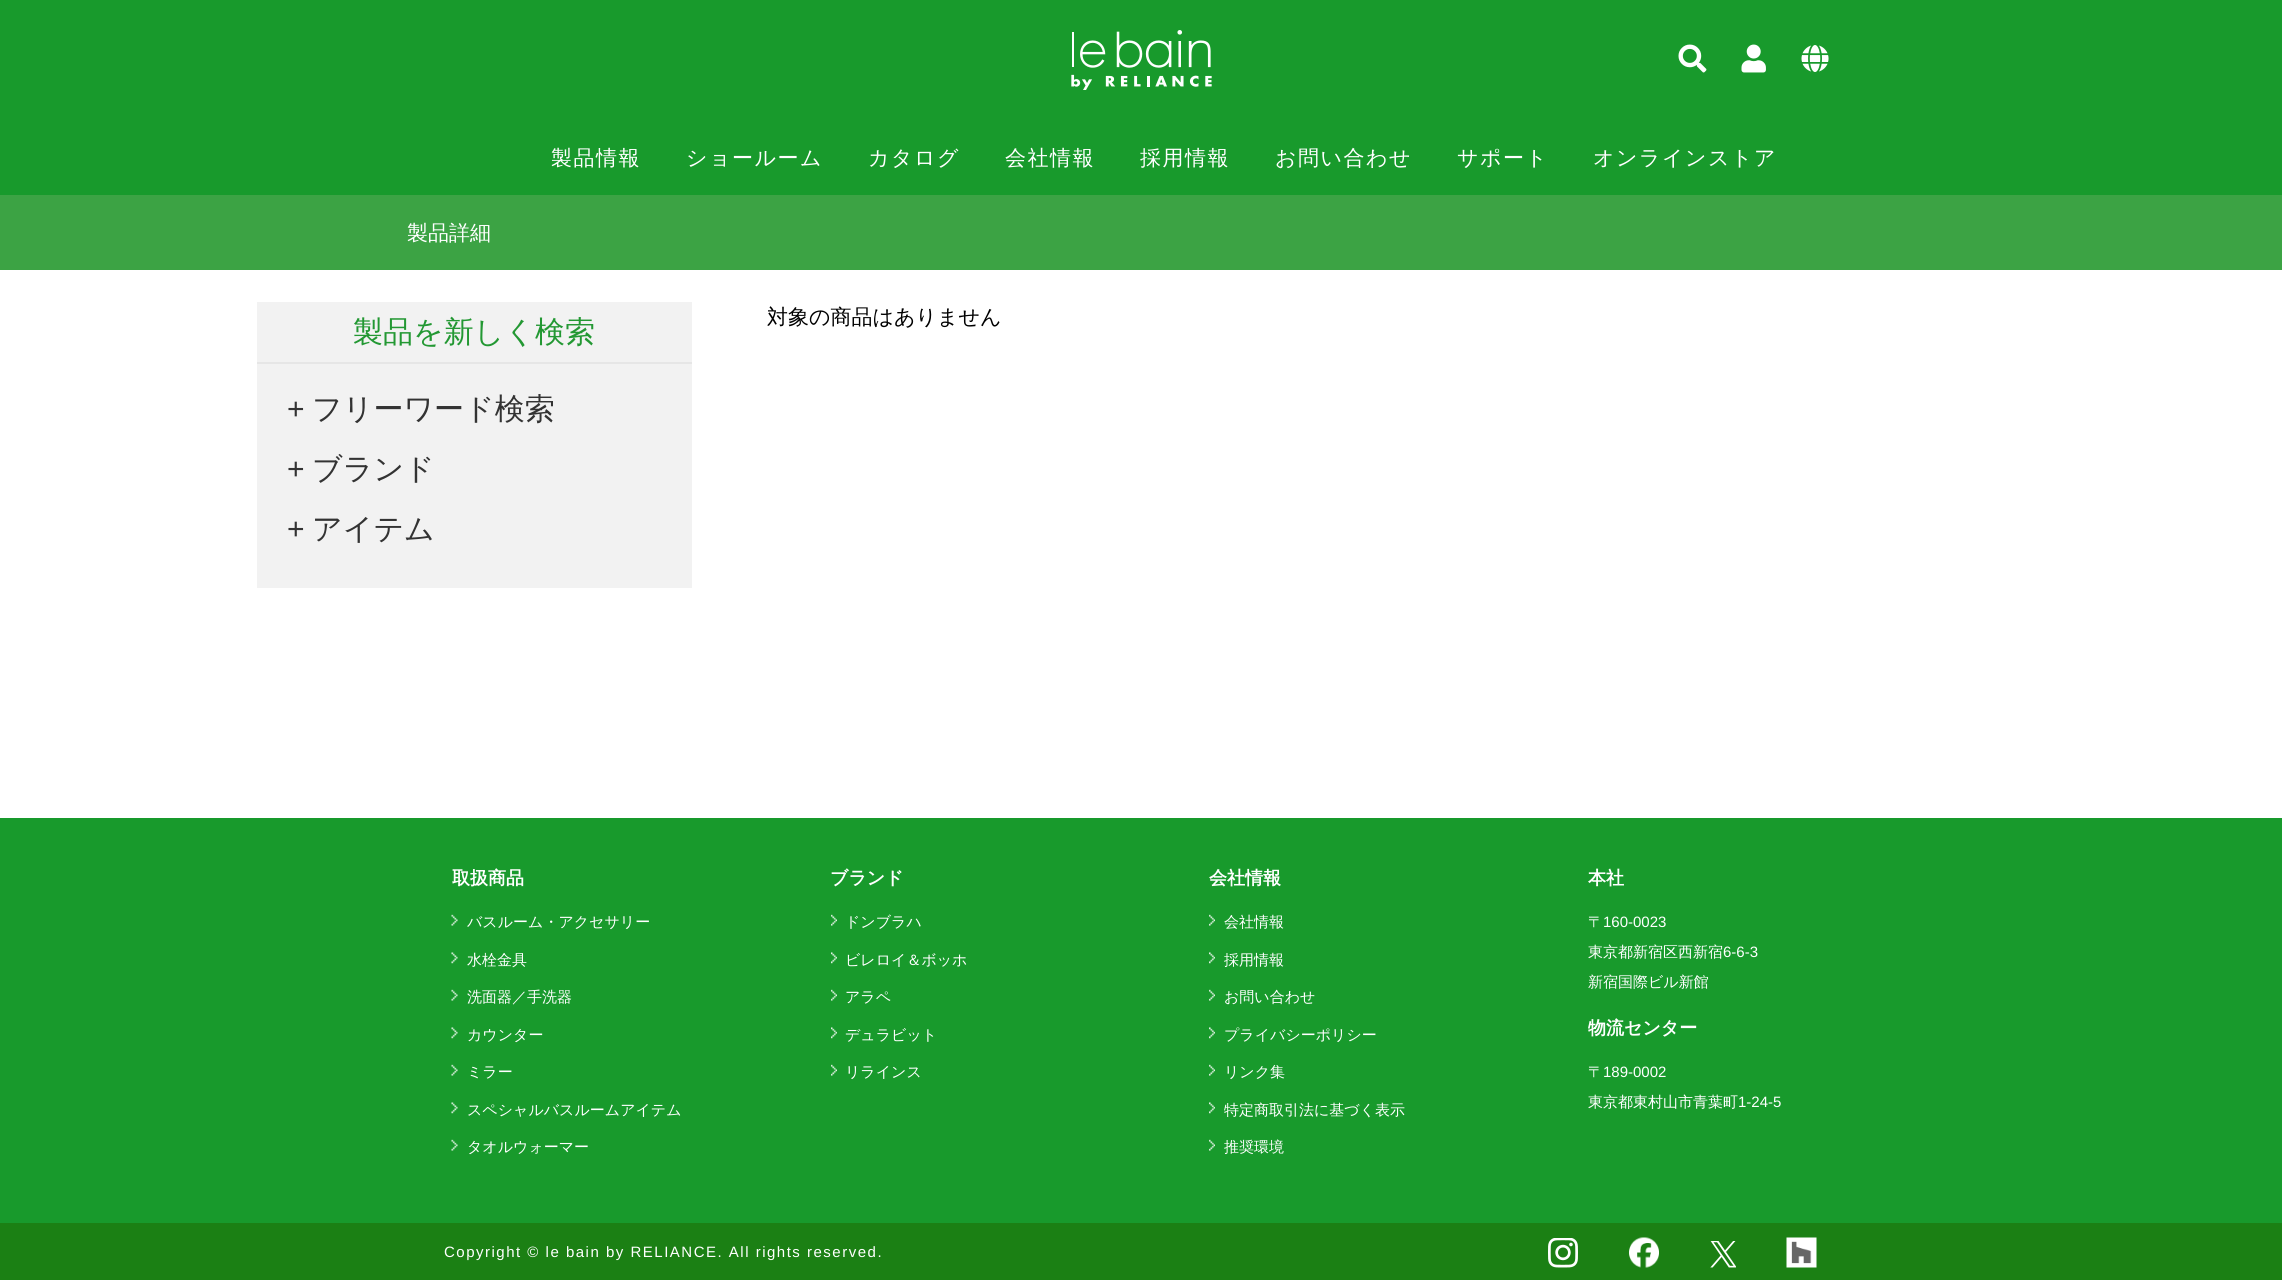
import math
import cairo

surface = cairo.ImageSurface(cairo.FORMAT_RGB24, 2282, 1280)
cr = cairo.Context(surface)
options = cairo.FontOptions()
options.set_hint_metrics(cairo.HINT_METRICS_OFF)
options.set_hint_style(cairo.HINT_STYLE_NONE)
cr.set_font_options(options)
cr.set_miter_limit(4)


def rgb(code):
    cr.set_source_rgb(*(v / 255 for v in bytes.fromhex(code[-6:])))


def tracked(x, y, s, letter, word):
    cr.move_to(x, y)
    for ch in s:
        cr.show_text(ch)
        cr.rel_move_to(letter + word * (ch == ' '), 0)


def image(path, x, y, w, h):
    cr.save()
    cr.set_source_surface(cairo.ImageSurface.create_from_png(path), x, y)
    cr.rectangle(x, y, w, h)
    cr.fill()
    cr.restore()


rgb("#ffffff")
cr.paint()
rgb("#189a2c")
cr.rectangle(0, 0, 2282, 195)
cr.fill()
image("img/1.png", 1071, 30, 141, 60)
image("img/2.png", 1678, 44, 29, 29)
image("img/3.png", 1741, 44, 25, 29)
image("img/4.png", 1801, 45, 28, 27)
for x, y, w, h, color in [
    (0, 195, 2282, 75, "#3ca344"),
    (257, 302, 435, 286, "#f2f2f2"),
    (257, 362, 435, 2, "#e6e6e6"),
    (0, 818, 2282, 405, "#189a2c"),
]:
    rgb(color)
    cr.rectangle(x, y, w, h)
    cr.fill()
image("img/5.png", 451, 914, 7, 12)
image("img/6.png", 451, 952, 7, 12)
image("img/5.png", 451, 989, 7, 12)
image("img/6.png", 451, 1027, 7, 12)
image("img/5.png", 451, 1064, 7, 12)
image("img/6.png", 451, 1102, 7, 12)
image("img/5.png", 451, 1139, 7, 12)
image("img/7.png", 831, 914, 6, 12)
image("img/8.png", 831, 952, 6, 12)
image("img/7.png", 831, 989, 6, 12)
image("img/8.png", 831, 1027, 6, 12)
image("img/7.png", 831, 1064, 6, 12)
image("img/9.png", 1209, 914, 6, 12)
image("img/10.png", 1209, 952, 6, 12)
image("img/9.png", 1209, 989, 6, 12)
image("img/10.png", 1209, 1027, 6, 12)
image("img/9.png", 1209, 1064, 6, 12)
image("img/10.png", 1209, 1102, 6, 12)
image("img/9.png", 1209, 1139, 6, 12)
rgb("#1b8014")
cr.rectangle(0, 1223, 2282, 57)
cr.fill()
image("img/11.png", 1548, 1238, 30, 30)
image("img/12.png", 1629, 1237, 30, 31)
image("img/13.png", 1710, 1241, 26, 27)
image("img/14.png", 1786, 1237, 31, 31)
cr.select_font_face("WenQuanYi Zen Hei Medium")
cr.set_font_size(21)
rgb("#ffffff")
for x, y, s in [
    (551, 165, "製品情報"),
    (686, 165, "ショールーム"),
    (868, 165, "カタログ"),
    (1005, 165, "会社情報"),
    (1140, 165, "採用情報"),
    (1275, 165, "お問い合わせ"),
    (1457, 165, "サポート"),
    (1593, 165, "オンラインストア"),
]:
    tracked(x, y, s, 1.5, 0)
cr.move_to(407, 240)
cr.show_text("製品詳細")
cr.set_font_size(30)
rgb("#239833")
cr.move_to(353, 342)
cr.show_text("製品を新しく検索")
cr.select_font_face("Liberation Sans")
rgb("#333333")
cr.move_to(287, 419)
cr.show_text("+")
cr.select_font_face("WenQuanYi Zen Hei Medium")
cr.move_to(312, 419)
cr.show_text("フリーワード検索")
cr.select_font_face("Liberation Sans")
cr.move_to(287, 479)
cr.show_text("+")
cr.select_font_face("WenQuanYi Zen Hei Medium")
cr.move_to(312, 479)
cr.show_text("ブランド")
cr.select_font_face("Liberation Sans")
cr.move_to(287, 539)
cr.show_text("+")
cr.select_font_face("WenQuanYi Zen Hei Medium")
cr.move_to(312, 539)
cr.show_text("アイテム")
cr.set_font_size(21)
rgb("#000000")
cr.move_to(767, 324)
cr.show_text("対象の商品はありません")
cr.select_font_face("WenQuanYi Zen Hei", cairo.FONT_SLANT_NORMAL, cairo.FONT_WEIGHT_BOLD)
cr.set_font_size(18)
rgb("#ffffff")
cr.move_to(452, 884)
cr.show_text("取扱商品")
cr.select_font_face("WenQuanYi Zen Hei Medium")
cr.set_font_size(15)
for x, y, s in [
    (467, 927, "バスルーム・アクセサリー"),
    (467, 965, "水栓金具"),
    (467, 1002, "洗面器／手洗器"),
    (467, 1040, "カウンター"),
    (467, 1077, "ミラー"),
    (467, 1115, "スペシャルバスルームアイテム"),
    (467, 1152, "タオルウォーマー"),
]:
    cr.move_to(x, y)
    cr.show_text(s)
cr.select_font_face("WenQuanYi Zen Hei", cairo.FONT_SLANT_NORMAL, cairo.FONT_WEIGHT_BOLD)
cr.set_font_size(18)
cr.move_to(830, 884)
cr.show_text("ブランド")
cr.select_font_face("WenQuanYi Zen Hei Medium")
cr.set_font_size(15)
for x, y, s in [
    (845, 927, "ドンブラハ"),
    (845, 965, "ビレロイ＆ボッホ"),
    (845, 1002, "アラペ"),
    (845, 1040, "デュラビット"),
    (845, 1077, "リラインス"),
]:
    cr.move_to(x, y)
    cr.show_text(s)
cr.select_font_face("WenQuanYi Zen Hei", cairo.FONT_SLANT_NORMAL, cairo.FONT_WEIGHT_BOLD)
cr.set_font_size(18)
cr.move_to(1209, 884)
cr.show_text("会社情報")
cr.select_font_face("WenQuanYi Zen Hei Medium")
cr.set_font_size(15)
for x, y, s in [
    (1224, 927, "会社情報"),
    (1224, 965, "採用情報"),
    (1224, 1002, "お問い合わせ"),
    (1224, 1040, "プライバシーポリシー"),
    (1224, 1077, "リンク集"),
    (1224, 1115, "特定商取引法に基づく表示"),
    (1224, 1152, "推奨環境"),
]:
    cr.move_to(x, y)
    cr.show_text(s)
cr.select_font_face("WenQuanYi Zen Hei", cairo.FONT_SLANT_NORMAL, cairo.FONT_WEIGHT_BOLD)
cr.set_font_size(18)
cr.move_to(1588, 884)
cr.show_text("本社")
cr.select_font_face("WenQuanYi Zen Hei Medium")
cr.set_font_size(15)
cr.move_to(1588, 927)
cr.show_text("〒")
cr.select_font_face("Liberation Sans")
cr.move_to(1603, 927)
cr.show_text("160-0023")
cr.select_font_face("WenQuanYi Zen Hei Medium")
cr.move_to(1588, 957)
cr.show_text("東京都新宿区西新宿")
cr.select_font_face("Liberation Sans")
cr.move_to(1723, 957)
cr.show_text("6-6-3")
cr.select_font_face("WenQuanYi Zen Hei Medium")
cr.move_to(1588, 987)
cr.show_text("新宿国際ビル新館")
cr.select_font_face("WenQuanYi Zen Hei", cairo.FONT_SLANT_NORMAL, cairo.FONT_WEIGHT_BOLD)
cr.set_font_size(18)
cr.move_to(1588, 1034)
cr.show_text("物流センター")
cr.select_font_face("WenQuanYi Zen Hei Medium")
cr.set_font_size(15)
cr.move_to(1588, 1077)
cr.show_text("〒")
cr.select_font_face("Liberation Sans")
cr.move_to(1603, 1077)
cr.show_text("189-0002")
cr.select_font_face("WenQuanYi Zen Hei Medium")
cr.move_to(1588, 1107)
cr.show_text("東京都東村山市青葉町")
cr.select_font_face("Liberation Sans")
cr.move_to(1738, 1107)
cr.show_text("1-24-5")
tracked(444, 1257, "Copyright © le bain by RELIANCE. All rights reserved.", 1.5, 0)
surface.write_to_png("page.png")
